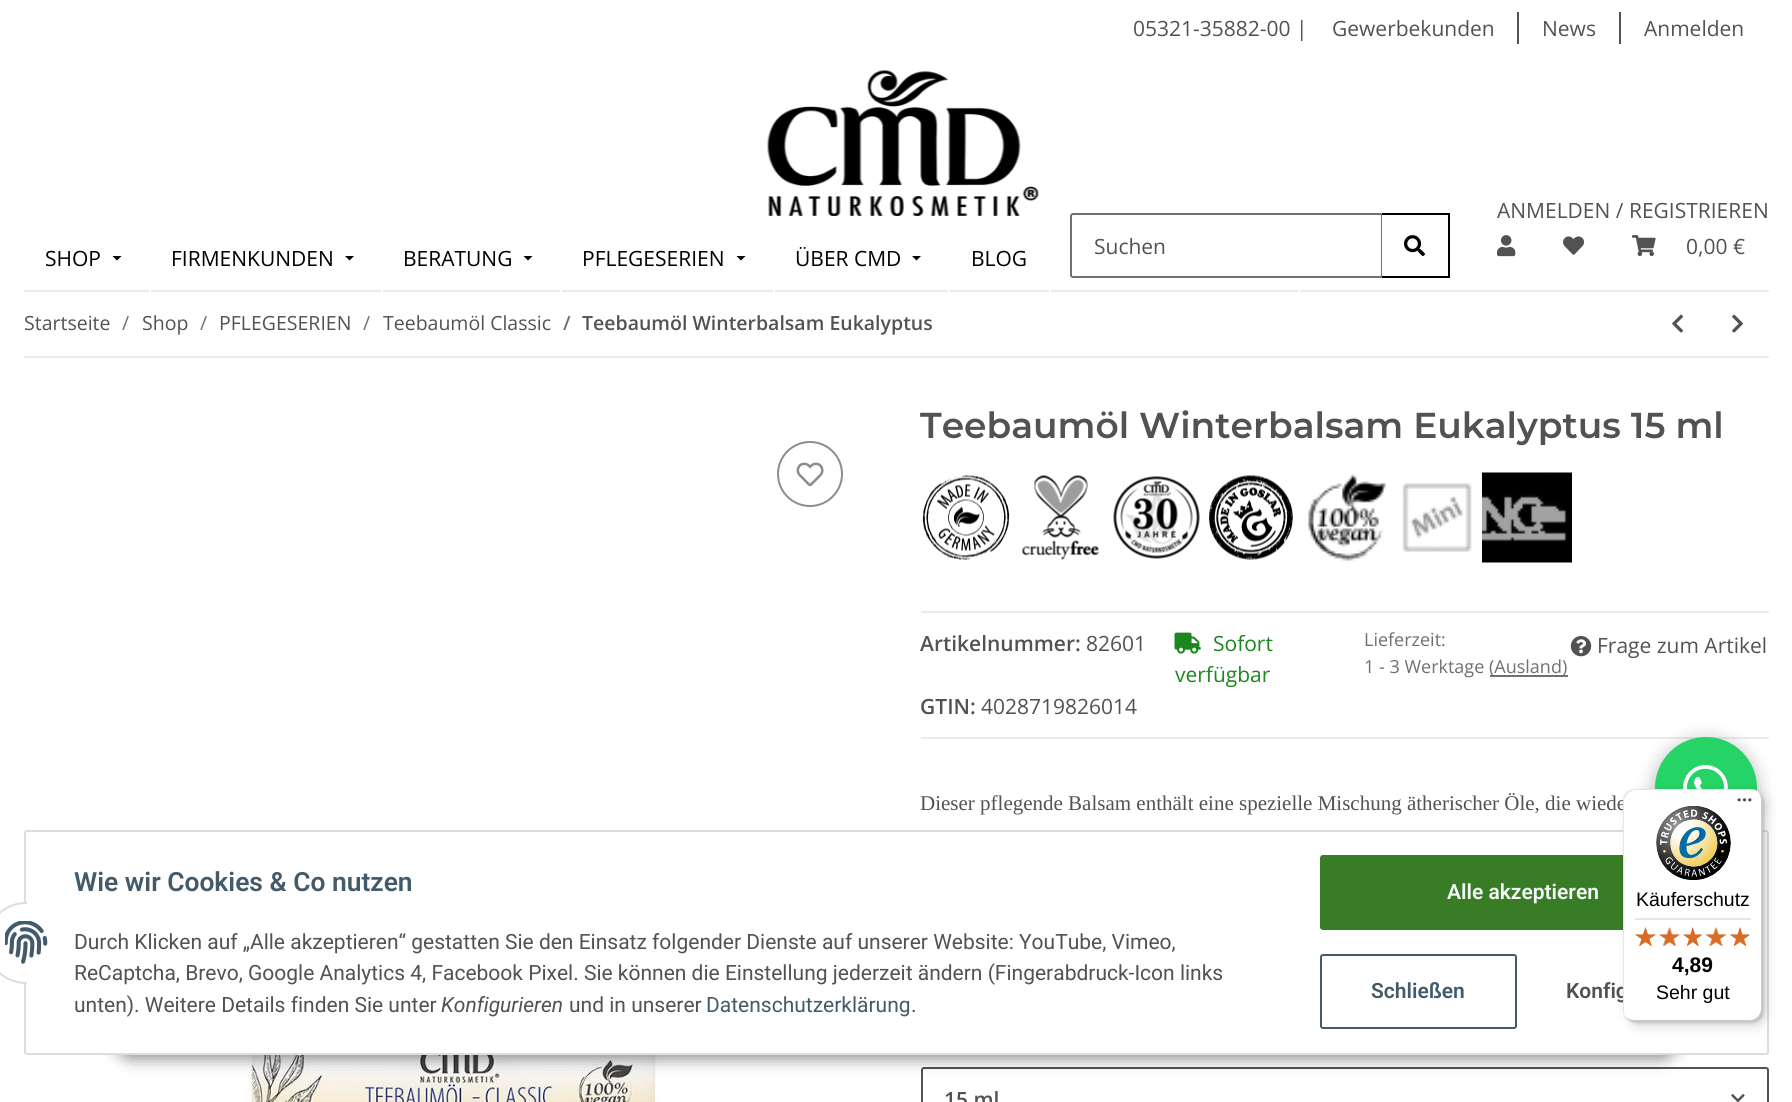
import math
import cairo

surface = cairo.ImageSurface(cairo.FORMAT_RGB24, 1792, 1102)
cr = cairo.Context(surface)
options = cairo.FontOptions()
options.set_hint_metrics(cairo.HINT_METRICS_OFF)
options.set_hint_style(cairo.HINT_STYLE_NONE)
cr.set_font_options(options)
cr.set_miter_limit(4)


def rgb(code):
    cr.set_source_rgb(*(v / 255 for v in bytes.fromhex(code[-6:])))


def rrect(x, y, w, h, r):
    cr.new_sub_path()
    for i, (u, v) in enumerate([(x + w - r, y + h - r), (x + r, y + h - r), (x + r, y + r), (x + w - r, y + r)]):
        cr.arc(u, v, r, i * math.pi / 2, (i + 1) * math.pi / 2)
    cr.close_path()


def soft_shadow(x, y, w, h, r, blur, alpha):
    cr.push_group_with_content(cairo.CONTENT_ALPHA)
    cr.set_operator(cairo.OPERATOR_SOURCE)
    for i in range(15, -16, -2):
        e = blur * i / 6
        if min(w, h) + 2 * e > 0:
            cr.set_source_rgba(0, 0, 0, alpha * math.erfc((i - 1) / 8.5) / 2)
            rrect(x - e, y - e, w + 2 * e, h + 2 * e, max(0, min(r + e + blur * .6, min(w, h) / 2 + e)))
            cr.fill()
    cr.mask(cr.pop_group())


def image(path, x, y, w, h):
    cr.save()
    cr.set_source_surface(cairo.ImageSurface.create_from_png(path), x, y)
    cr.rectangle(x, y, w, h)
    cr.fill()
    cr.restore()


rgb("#ffffff")
cr.paint()
rgb("#525252")
cr.rectangle(1517, 12, 2, 32)
cr.fill()
cr.rectangle(1619, 12, 2, 32)
cr.fill()
image("img/1.png", 767, 70, 272, 146)
rgb("#ebebeb")
cr.rectangle(24, 290, 1745, 2)
cr.fill()
rgb("#ffffff")
cr.rectangle(149, 290, 2, 4)
cr.fill()
rgb("#000000")
cr.new_path()
cr.move_to(112.5, 256)
cr.line_to(121.5, 256)
cr.line_to(117, 260.5)
cr.close_path()
cr.fill()
rgb("#ffffff")
cr.rectangle(381, 290, 2, 4)
cr.fill()
rgb("#000000")
cr.new_path()
cr.move_to(345, 256)
cr.line_to(354, 256)
cr.line_to(349.5, 260.5)
cr.close_path()
cr.fill()
rgb("#ffffff")
cr.rectangle(560, 290, 2, 4)
cr.fill()
rgb("#000000")
cr.new_path()
cr.move_to(523.5, 256)
cr.line_to(532.5, 256)
cr.line_to(528, 260.5)
cr.close_path()
cr.fill()
rgb("#ffffff")
cr.rectangle(773, 290, 2, 4)
cr.fill()
rgb("#000000")
cr.new_path()
cr.move_to(736.5, 256)
cr.line_to(745.5, 256)
cr.line_to(741, 260.5)
cr.close_path()
cr.fill()
rgb("#ffffff")
cr.rectangle(948, 290, 2, 4)
cr.fill()
rgb("#000000")
cr.new_path()
cr.move_to(912, 256)
cr.line_to(921, 256)
cr.line_to(916.5, 260.5)
cr.close_path()
cr.fill()
rgb("#ffffff")
cr.rectangle(1049, 290, 2, 4)
cr.fill()
cr.rectangle(1298, 290, 2, 4)
cr.fill()
rrect(1071, 214, 311, 63, 2)
rgb("#707070")
cr.stroke()
for x, y, w, h, color in [
    (1382, 215, 1, 61, "#ffffff"),
    (1382, 213, 67, 2, "#000000"),
    (1448, 213, 2, 65, "#000000"),
    (1382, 276, 67, 2, "#000000"),
]:
    rgb(color)
    cr.rectangle(x, y, w, h)
    cr.fill()
image("img/2.png", 1404, 235, 21, 22)
image("img/3.png", 1497, 235, 19, 22)
image("img/4.png", 1563, 236, 21, 19)
image("img/5.png", 1632, 235, 24, 22)
rgb("#ebebeb")
cr.rectangle(24, 356, 1745, 2)
cr.fill()
image("img/6.png", 1672, 314, 11, 19)
image("img/7.png", 1732, 314, 11, 19)
cr.arc(810, 474, 32, 0, 2 * math.pi)
rgb("#8d8d8d")
cr.stroke()
image("img/8.png", 796, 462, 28, 25)
image("img/9.png", 248, 1055, 413, 47)
image("img/10.png", 922, 475, 88, 85)
image("img/11.png", 1022, 475, 77, 85)
image("img/12.png", 1113, 476, 87, 83)
image("img/13.png", 1209, 475, 84, 85)
image("img/14.png", 1308, 474, 78, 87)
image("img/15.png", 1402, 483, 70, 69)
image("img/16.png", 1482, 472, 90, 91)
rgb("#ebebeb")
cr.rectangle(921, 611, 848, 2)
cr.fill()
cr.rectangle(921, 737, 848, 2)
cr.fill()
image("img/17.png", 1174, 632, 27, 22)
rgb("#707070")
cr.rectangle(1490, 675, 78, 2)
cr.fill()
image("img/18.png", 1570, 636, 22, 21)
rrect(922, 1068, 846, 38, 2)
rgb("#525252")
cr.stroke()
image("img/19.png", 1731, 1094, 14, 8)
rgb("#000000")
soft_shadow(113, 1011, 1567, 48, 24, 7.5, 0.45)
rgb("#ffffff")
rrect(25, 831, 1743, 223, 2)
cr.fill_preserve()
rgb("#dddddd")
cr.stroke()
rgb("#397c26")
rrect(1321, 856, 403, 73, 2)
cr.fill_preserve()
cr.stroke()
rgb("#000000")
soft_shadow(1655, 741, 102, 102, 51, 9, 0.3)
rgb("#25d366")
cr.arc(1706, 788, 51, 0, 2 * math.pi)
cr.fill()
image("img/20.png", 1683, 765, 45, 24)
rgb("#ffffff")
rrect(-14, 903, 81, 80, 40)
cr.fill_preserve()
rgb("#dddddd")
cr.stroke()
rgb("#ffffff")
cr.rectangle(27, 902, 41, 82)
cr.fill()
image("img/21.png", 5, 921, 43, 43)
rrect(1321, 955, 195, 73, 2)
rgb("#435a6b")
cr.stroke()
rgb("#000000")
soft_shadow(1628, 794, 139, 232, 12, 6, 0.15)
soft_shadow(1625, 791, 139, 232, 12, 1.5, 0.15)
cr.select_font_face("Open Sans")
cr.set_font_size(21)
rgb("#525252")
for x, y, s in [
    (1133, 36, "05321-35882-00 |"),
    (1332, 36, "Gewerbekunden"),
    (1542, 36, "News"),
    (1644, 36, "Anmelden"),
]:
    cr.move_to(x, y)
    cr.show_text(s)
rgb("#000000")
for x, y, s in [
    (45, 266, "SHOP"),
    (171, 266, "FIRMENKUNDEN"),
    (403, 266, "BERATUNG"),
    (582, 266, "PFLEGESERIEN"),
    (795, 266, "ÜBER CMD"),
    (971, 266, "BLOG"),
]:
    cr.move_to(x, y)
    cr.show_text(s)
rgb("#525252")
for x, y, s in [
    (1497, 218, "ANMELDEN / REGISTRIEREN"),
    (1094, 254, "Suchen"),
    (1686, 254, "0,00 €"),
]:
    cr.move_to(x, y)
    cr.show_text(s)
cr.set_font_size(19.5)
cr.move_to(24, 330)
cr.show_text("Startseite")
rgb("#707070")
cr.move_to(122, 330)
cr.show_text("/")
rgb("#525252")
cr.move_to(142, 330)
cr.show_text("Shop")
rgb("#707070")
cr.move_to(200, 330)
cr.show_text("/")
rgb("#525252")
cr.move_to(219, 330)
cr.show_text("PFLEGESERIEN")
rgb("#707070")
cr.move_to(363, 330)
cr.show_text("/")
rgb("#525252")
cr.move_to(383, 330)
cr.show_text("Teebaumöl Classic")
cr.select_font_face("Open Sans SemiBold")
rgb("#707070")
cr.move_to(563, 330)
cr.show_text("/")
rgb("#525252")
cr.move_to(582, 330)
cr.show_text("Teebaumöl Winterbalsam Eukalyptus")
cr.select_font_face("Montserrat SemiBold")
cr.set_font_size(36)
cr.move_to(920, 438)
cr.show_text("Teebaumöl Winterbalsam Eukalyptus 15 ml")
cr.select_font_face("Open Sans SemiBold")
cr.set_font_size(21)
cr.move_to(920, 651)
cr.show_text("Artikelnummer:")
cr.select_font_face("Open Sans")
cr.move_to(1086, 651)
cr.show_text("82601")
rgb("#1c871e")
cr.move_to(1213, 651)
cr.show_text("Sofort")
cr.move_to(1175, 682)
cr.show_text("verfügbar")
cr.set_font_size(18)
rgb("#707070")
for x, y, s in [
    (1364, 646, "Lieferzeit:"),
    (1364, 673, "1 - 3 Werktage"),
    (1489, 673, "(Ausland)"),
]:
    cr.move_to(x, y)
    cr.show_text(s)
cr.set_font_size(21)
rgb("#525252")
cr.move_to(1597, 653)
cr.show_text("Frage zum Artikel")
cr.select_font_face("Open Sans SemiBold")
cr.move_to(920, 714)
cr.show_text("GTIN:")
cr.select_font_face("Open Sans")
cr.move_to(981, 714)
cr.show_text("4028719826014")
cr.select_font_face("Liberation Serif")
cr.move_to(920, 810)
cr.show_text("Dieser pflegende Balsam enthält eine spezielle Mischung ätherischer Öle, die wiede")
cr.select_font_face("Open Sans SemiBold")
cr.move_to(944, 1107)
cr.show_text("15 ml")
cr.select_font_face("Roboto SemiBold")
cr.set_font_size(26.4)
rgb("#435a6b")
cr.move_to(74, 891)
cr.show_text("Wie wir Cookies & Co nutzen")
cr.select_font_face("Roboto")
cr.set_font_size(21)
rgb("#525252")
for x, y, s in [
    (74, 949, "Durch Klicken auf „Alle akzeptieren“ gestatten Sie den Einsatz folgender Dienste auf unserer Website: YouTube, Vimeo,"),
    (74, 980, "ReCaptcha, Brevo, Google Analytics 4, Facebook Pixel. Sie können die Einstellung jederzeit ändern (Fingerabdruck-Icon links"),
    (74, 1012, "unten). Weitere Details finden Sie unter"),
]:
    cr.move_to(x, y)
    cr.show_text(s)
cr.select_font_face("Roboto", cairo.FONT_SLANT_ITALIC)
cr.move_to(441, 1012)
cr.show_text("Konfigurieren")
cr.select_font_face("Roboto")
cr.move_to(569, 1012)
cr.show_text("und in unserer")
rgb("#435a6b")
cr.move_to(706, 1012)
cr.show_text("Datenschutzerklärung")
rgb("#525252")
cr.move_to(911, 1012)
cr.show_text(".")
cr.select_font_face("Roboto SemiBold")
rgb("#f5f7fa")
cr.move_to(1447, 899)
cr.show_text("Alle akzeptieren")
rgb("#435a6b")
cr.move_to(1371, 998)
cr.show_text("Schließen")
rgb("#525252")
cr.move_to(1566, 998)
cr.show_text("Konfig")
rgb("#ffffff")
rrect(1623, 789, 140, 233, 12)
cr.fill()
cr.set_source_rgba(0, 0, 0, 0.1)
cr.new_path()
cr.move_to(1636, 790)
cr.line_to(1752, 790)
cr.curve_to(1755, 790, 1758, 791, 1760, 793)
cr.curve_to(1758, 791, 1755, 789, 1751, 789)
cr.line_to(1635, 789)
cr.curve_to(1628, 789, 1623, 794, 1623, 801)
cr.line_to(1623, 1010)
cr.curve_to(1623, 1014, 1625, 1017, 1627, 1019)
cr.curve_to(1625, 1017, 1624, 1014, 1624, 1011)
cr.line_to(1624, 802)
cr.curve_to(1624, 796, 1630, 790, 1636, 790)
cr.close_path()
cr.fill()
cr.set_source_rgba(0, 0, 0, 0.2)
cr.new_path()
cr.move_to(1624, 1015)
cr.curve_to(1626, 1019, 1630, 1022, 1635, 1022)
cr.line_to(1751, 1022)
cr.curve_to(1758, 1022, 1763, 1017, 1763, 1010)
cr.line_to(1763, 801)
cr.curve_to(1763, 796, 1760, 792, 1756, 790)
cr.curve_to(1759, 792, 1761, 796, 1761, 800)
cr.line_to(1761, 1008)
cr.curve_to(1761, 1015, 1756, 1020, 1749, 1020)
cr.line_to(1634, 1020)
cr.curve_to(1630, 1020, 1626, 1018, 1624, 1015)
cr.close_path()
cr.fill()
cr.set_source_rgba(0.196, 0.196, 0.196, 0.2)
cr.new_path()
cr.move_to(1626, 1018)
cr.curve_to(1628, 1020, 1631, 1022, 1635, 1022)
cr.line_to(1751, 1022)
cr.curve_to(1758, 1022, 1763, 1017, 1763, 1010)
cr.line_to(1763, 801)
cr.curve_to(1763, 797, 1761, 794, 1759, 792)
cr.curve_to(1761, 794, 1762, 797, 1762, 800)
cr.line_to(1762, 1009)
cr.curve_to(1762, 1015, 1756, 1021, 1750, 1021)
cr.line_to(1634, 1021)
cr.curve_to(1631, 1021, 1628, 1020, 1626, 1018)
cr.close_path()
cr.fill()
cr.set_source_rgba(1, 1, 1, 0.3)
cr.new_path()
cr.move_to(1625, 1016)
cr.curve_to(1627, 1020, 1630, 1022, 1635, 1022)
cr.line_to(1751, 1022)
cr.curve_to(1758, 1022, 1763, 1017, 1763, 1010)
cr.line_to(1763, 801)
cr.curve_to(1763, 796, 1761, 793, 1757, 791)
cr.curve_to(1760, 793, 1762, 796, 1762, 800)
cr.line_to(1762, 1009)
cr.curve_to(1762, 1015, 1756, 1021, 1750, 1021)
cr.line_to(1634, 1021)
cr.curve_to(1630, 1021, 1627, 1019, 1625, 1016)
cr.close_path()
cr.fill()
image("img/22.png", 1737, 798, 15, 4)
image("img/23.png", 1656, 806, 75, 75)
cr.select_font_face("Liberation Sans")
cr.set_font_size(19.5)
rgb("#000000")
cr.move_to(1636, 906)
cr.show_text("Käuferschutz")
rgb("#e5e5e5")
cr.rectangle(1635, 918, 116, 2)
cr.fill()
image("img/24.png", 1635, 927, 21, 19)
image("img/25.png", 1659, 927, 21, 19)
image("img/26.png", 1683, 927, 19, 19)
image("img/27.png", 1705, 927, 22, 19)
image("img/28.png", 1730, 927, 20, 19)
image("img/29.png", 1635, 927, 21, 20)
image("img/30.png", 1659, 927, 21, 19)
image("img/31.png", 1683, 927, 20, 20)
image("img/32.png", 1705, 927, 22, 19)
image("img/33.png", 1730, 927, 19, 20)
cr.select_font_face("Liberation Sans", cairo.FONT_SLANT_NORMAL, cairo.FONT_WEIGHT_BOLD)
cr.set_font_size(21)
rgb("#000000")
cr.move_to(1672, 972)
cr.show_text("4,89")
cr.select_font_face("Liberation Sans")
cr.set_font_size(19.5)
cr.move_to(1656, 999)
cr.show_text("Sehr gut")
surface.write_to_png("page.png")
